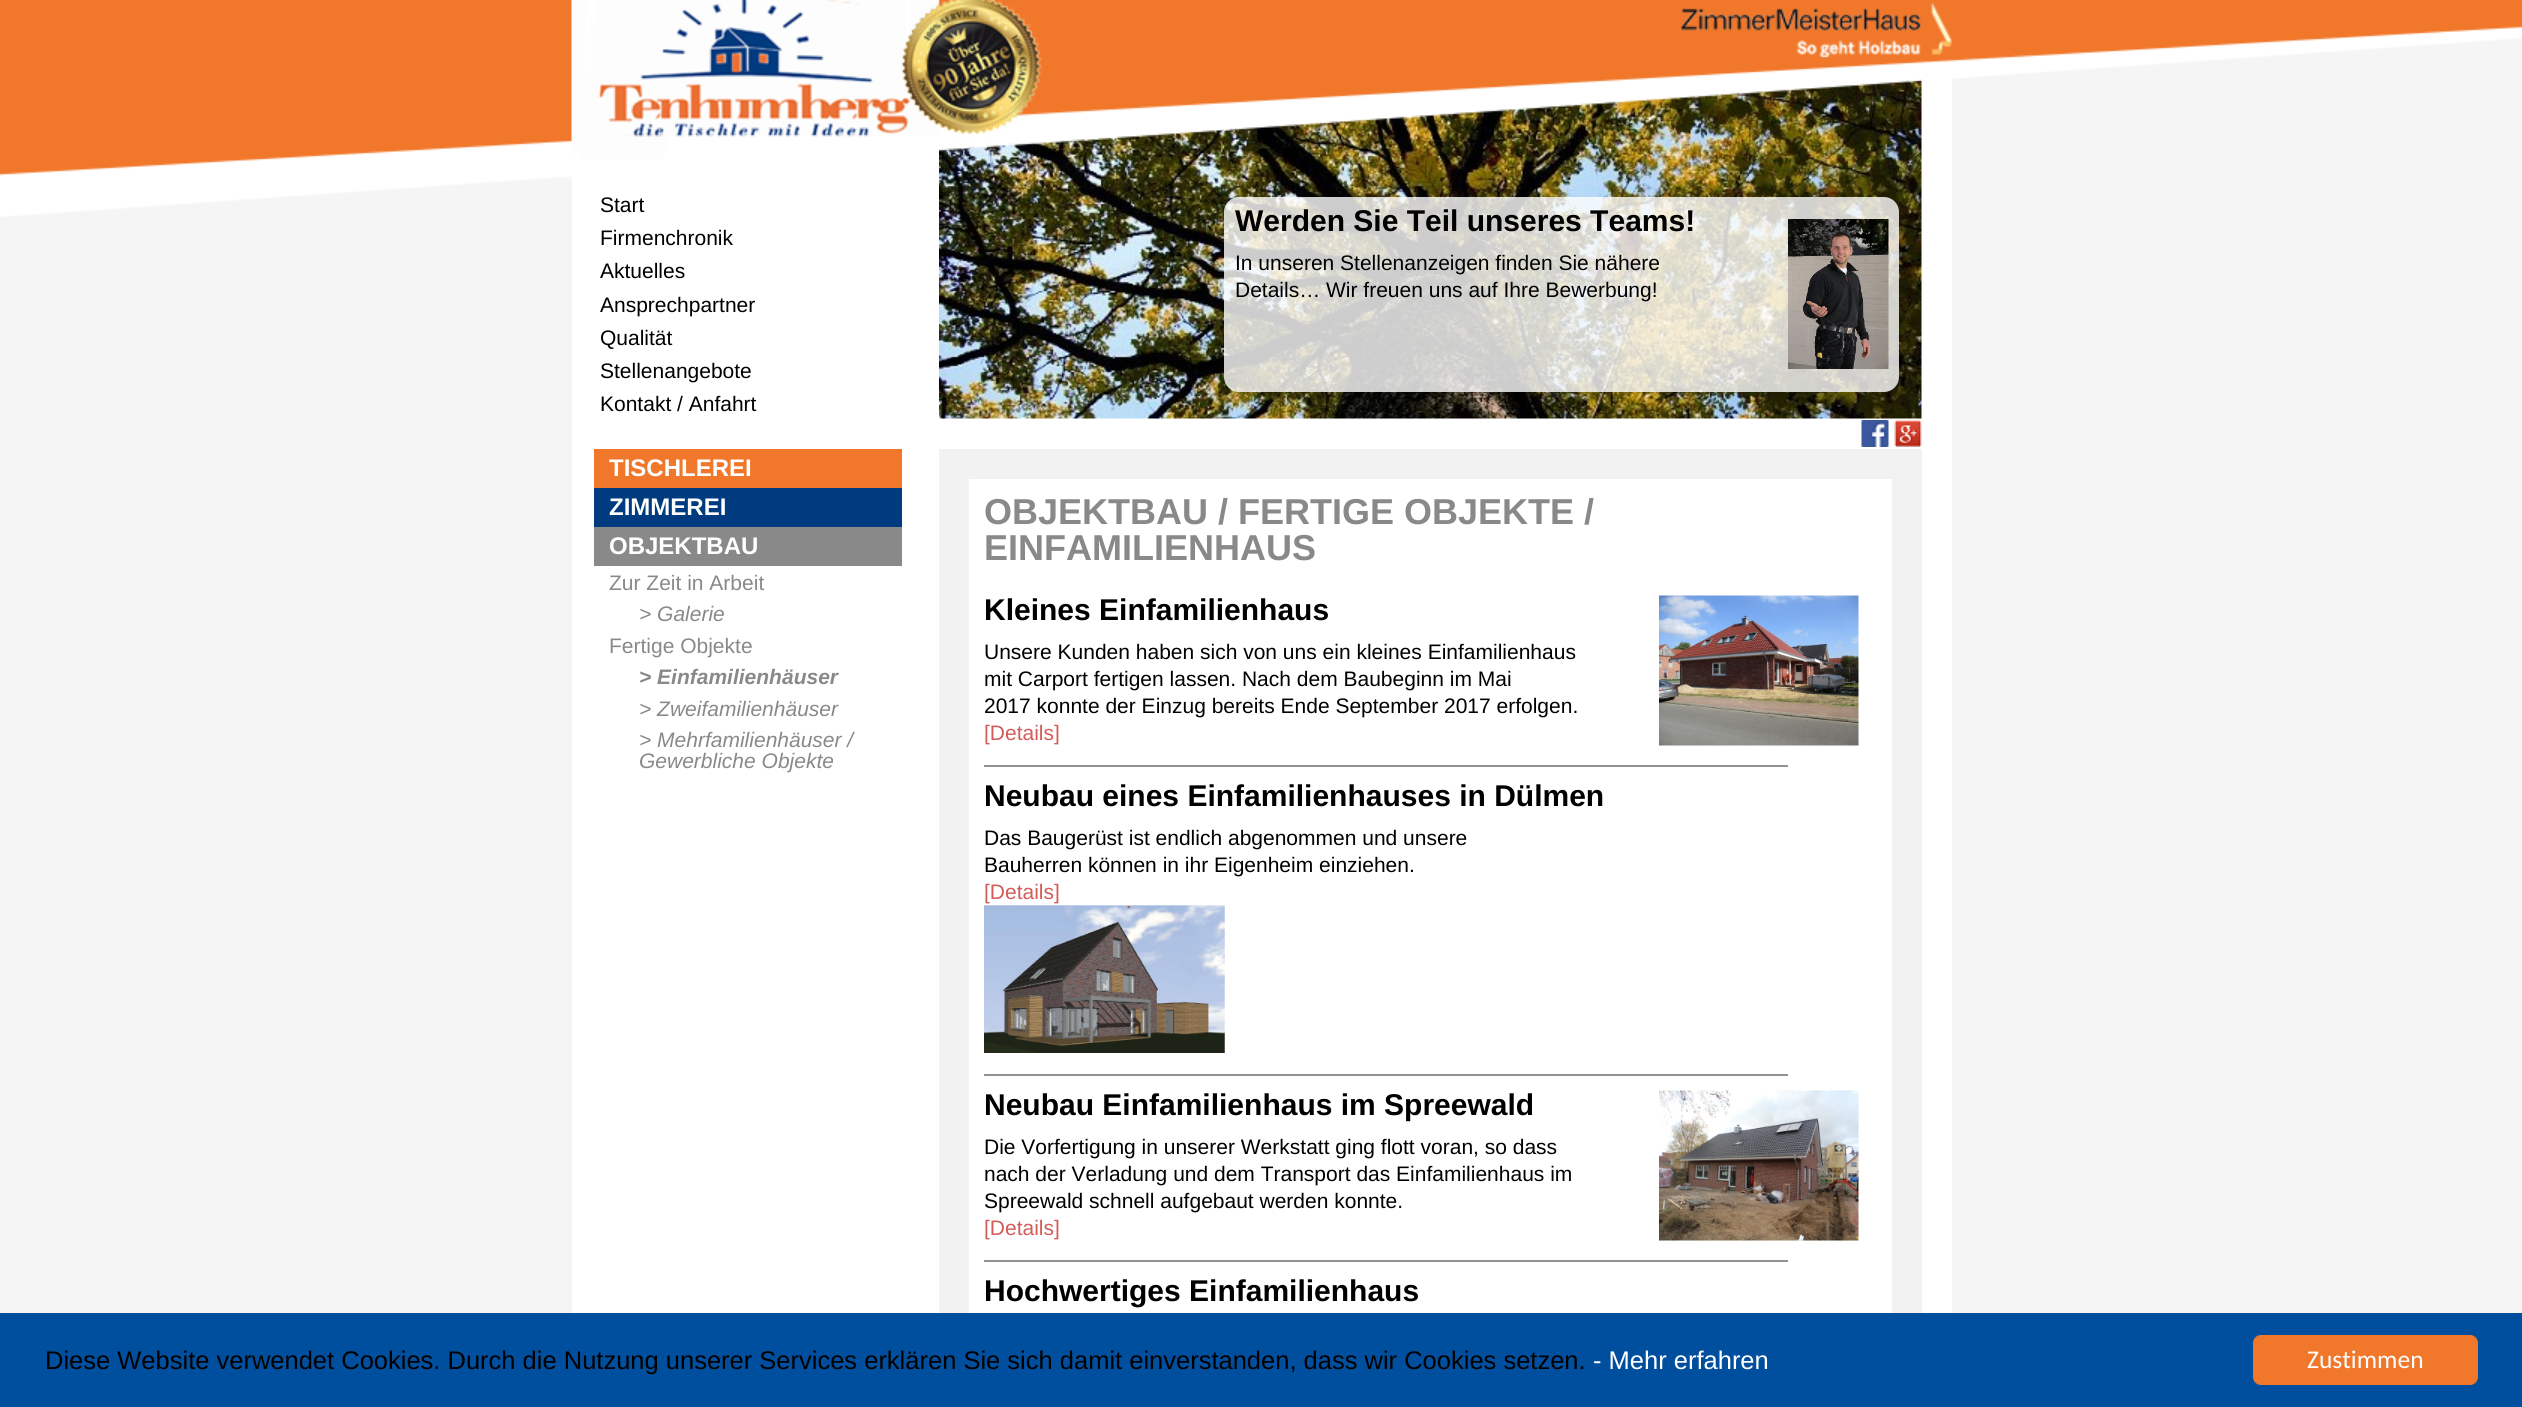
import math
import cairo

surface = cairo.ImageSurface(cairo.FORMAT_RGB24, 2522, 1407)
cr = cairo.Context(surface)
options = cairo.FontOptions()
options.set_hint_metrics(cairo.HINT_METRICS_OFF)
options.set_hint_style(cairo.HINT_STYLE_NONE)
cr.set_font_options(options)
cr.set_miter_limit(4)


def rgb(code):
    cr.set_source_rgb(*(v / 255 for v in bytes.fromhex(code[-6:])))


def rrect(x, y, w, h, r):
    cr.new_sub_path()
    for i, (u, v) in enumerate([(x + w - r, y + h - r), (x + r, y + h - r), (x + r, y + r), (x + w - r, y + r)]):
        cr.arc(u, v, r, i * math.pi / 2, (i + 1) * math.pi / 2)
    cr.close_path()


def image(path, x, y, w, h):
    cr.save()
    cr.set_source_surface(cairo.ImageSurface.create_from_png(path), x, y)
    cr.rectangle(x, y, w, h)
    cr.fill()
    cr.restore()


rgb("#f5f5f6")
cr.paint()
rgb("#ffffff")
cr.rectangle(572, 149, 367, 37)
cr.fill()
cr.rectangle(939, 77, 1013, 342)
cr.fill()
image("img/2.png", 939, 79, 983, 340)
cr.set_source_rgba(1, 1, 1, 0.8)
rrect(1224, 197, 675, 195, 15)
cr.fill()
image("img/3.png", 1788, 219, 101, 150)
rgb("#ffffff")
cr.rectangle(572, 419, 1380, 894)
cr.fill()
image("img/4.png", 1861, 420, 28, 27)
image("img/5.png", 1894, 420, 28, 27)
for x, y, w, h, color in [
    (594, 449, 308, 39, "#f1772a"),
    (594, 488, 308, 39, "#003b7f"),
    (594, 527, 308, 39, "#898989"),
]:
    rgb(color)
    cr.rectangle(x, y, w, h)
    cr.fill()
cr.rectangle(954, 464, 953, 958)
rgb("#f2f2f2")
cr.set_line_width(30)
cr.stroke()
image("img/6.png", 1659, 595, 200, 151)
rgb("#929292")
cr.rectangle(984, 765, 804, 2)
cr.fill()
image("img/7.png", 984, 905, 241, 148)
cr.rectangle(984, 1074, 804, 2)
cr.fill()
image("img/8.png", 1659, 1090, 200, 151)
cr.rectangle(984, 1260, 804, 2)
cr.fill()
rgb("#004f9f")
cr.rectangle(0, 1313, 2522, 94)
cr.fill()
rgb("#f1782b")
rrect(2253, 1335, 225, 50, 8)
cr.fill()
cr.select_font_face("Liberation Sans", cairo.FONT_SLANT_NORMAL, cairo.FONT_WEIGHT_BOLD)
cr.set_font_size(30)
rgb("#000000")
cr.move_to(1235, 231)
cr.show_text("Werden Sie Teil unseres Teams!")
image("img/1.png", 0, 0, 2522, 217)
rgb("#ffffff")
cr.rectangle(572, 186, 367, 233)
cr.fill()
cr.select_font_face("Liberation Sans")
cr.set_font_size(21)
rgb("#000000")
for x, y, s in [
    (600, 411, "Kontakt / Anfahrt"),
    (600, 378, "Stellenangebote"),
    (600, 345, "Qualität"),
    (600, 312, "Ansprechpartner"),
    (600, 278, "Aktuelles"),
    (600, 245, "Firmenchronik"),
    (600, 212, "Start"),
    (1235, 270, "In unseren Stellenanzeigen finden Sie nähere"),
    (1235, 297, "Details… Wir freuen uns auf Ihre Bewerbung!"),
]:
    cr.move_to(x, y)
    cr.show_text(s)
cr.select_font_face("Liberation Sans", cairo.FONT_SLANT_NORMAL, cairo.FONT_WEIGHT_BOLD)
cr.set_font_size(24)
rgb("#ffffff")
for x, y, s in [
    (609, 476, "TISCHLEREI"),
    (609, 515, "ZIMMEREI"),
    (609, 554, "OBJEKTBAU"),
]:
    cr.move_to(x, y)
    cr.show_text(s)
cr.select_font_face("Liberation Sans")
cr.set_font_size(21)
rgb("#898989")
cr.move_to(609, 590)
cr.show_text("Zur Zeit in Arbeit")
cr.select_font_face("Liberation Sans", cairo.FONT_SLANT_ITALIC)
cr.move_to(639, 621)
cr.show_text("> Galerie")
cr.select_font_face("Liberation Sans")
cr.move_to(609, 653)
cr.show_text("Fertige Objekte")
cr.select_font_face("Liberation Sans", cairo.FONT_SLANT_ITALIC, cairo.FONT_WEIGHT_BOLD)
cr.move_to(639, 684)
cr.show_text("> Einfamilienhäuser")
cr.select_font_face("Liberation Sans", cairo.FONT_SLANT_ITALIC)
for x, y, s in [
    (639, 716, "> Zweifamilienhäuser"),
    (639, 747, "> Mehrfamilienhäuser /"),
    (639, 768, "Gewerbliche Objekte"),
]:
    cr.move_to(x, y)
    cr.show_text(s)
cr.select_font_face("Liberation Sans", cairo.FONT_SLANT_NORMAL, cairo.FONT_WEIGHT_BOLD)
cr.set_font_size(36)
cr.move_to(984, 524)
cr.show_text("OBJEKTBAU / FERTIGE OBJEKTE /")
cr.move_to(984, 560)
cr.show_text("EINFAMILIENHAUS")
cr.set_font_size(30)
rgb("#000000")
cr.move_to(984, 620)
cr.show_text("Kleines Einfamilienhaus")
cr.select_font_face("Liberation Sans")
cr.set_font_size(21)
for x, y, s in [
    (984, 659, "Unsere Kunden haben sich von uns ein kleines Einfamilienhaus"),
    (984, 686, "mit Carport fertigen lassen. Nach dem Baubeginn im Mai"),
    (984, 713, "2017 konnte der Einzug bereits Ende September 2017 erfolgen."),
]:
    cr.move_to(x, y)
    cr.show_text(s)
rgb("#d35c59")
cr.move_to(984, 740)
cr.show_text("[Details]")
cr.select_font_face("Liberation Sans", cairo.FONT_SLANT_NORMAL, cairo.FONT_WEIGHT_BOLD)
cr.set_font_size(30)
rgb("#000000")
cr.move_to(984, 806)
cr.show_text("Neubau eines Einfamilienhauses in Dülmen")
cr.select_font_face("Liberation Sans")
cr.set_font_size(21)
cr.move_to(984, 845)
cr.show_text("Das Baugerüst ist endlich abgenommen und unsere")
cr.move_to(984, 872)
cr.show_text("Bauherren können in ihr Eigenheim einziehen.")
rgb("#d35c59")
cr.move_to(984, 899)
cr.show_text("[Details]")
cr.select_font_face("Liberation Sans", cairo.FONT_SLANT_NORMAL, cairo.FONT_WEIGHT_BOLD)
cr.set_font_size(30)
rgb("#000000")
cr.move_to(984, 1115)
cr.show_text("Neubau Einfamilienhaus im Spreewald")
cr.select_font_face("Liberation Sans")
cr.set_font_size(21)
for x, y, s in [
    (984, 1154, "Die Vorfertigung in unserer Werkstatt ging flott voran, so dass"),
    (984, 1181, "nach der Verladung und dem Transport das Einfamilienhaus im"),
    (984, 1208, "Spreewald schnell aufgebaut werden konnte."),
]:
    cr.move_to(x, y)
    cr.show_text(s)
rgb("#d35c59")
cr.move_to(984, 1235)
cr.show_text("[Details]")
cr.select_font_face("Liberation Sans", cairo.FONT_SLANT_NORMAL, cairo.FONT_WEIGHT_BOLD)
cr.set_font_size(30)
rgb("#000000")
cr.move_to(984, 1301)
cr.show_text("Hochwertiges Einfamilienhaus")
cr.select_font_face("Liberation Sans")
cr.set_font_size(25.5)
cr.move_to(45, 1369)
cr.show_text("Diese Website verwendet Cookies. Durch die Nutzung unserer Services erklären Sie sich damit einverstanden, dass wir Cookies setzen.")
rgb("#ffffff")
cr.move_to(1593, 1369)
cr.show_text("- Mehr erfahren")
cr.select_font_face("Carlito")
cr.move_to(2307, 1368)
cr.show_text("Zustimmen")
surface.write_to_png("page.png")
